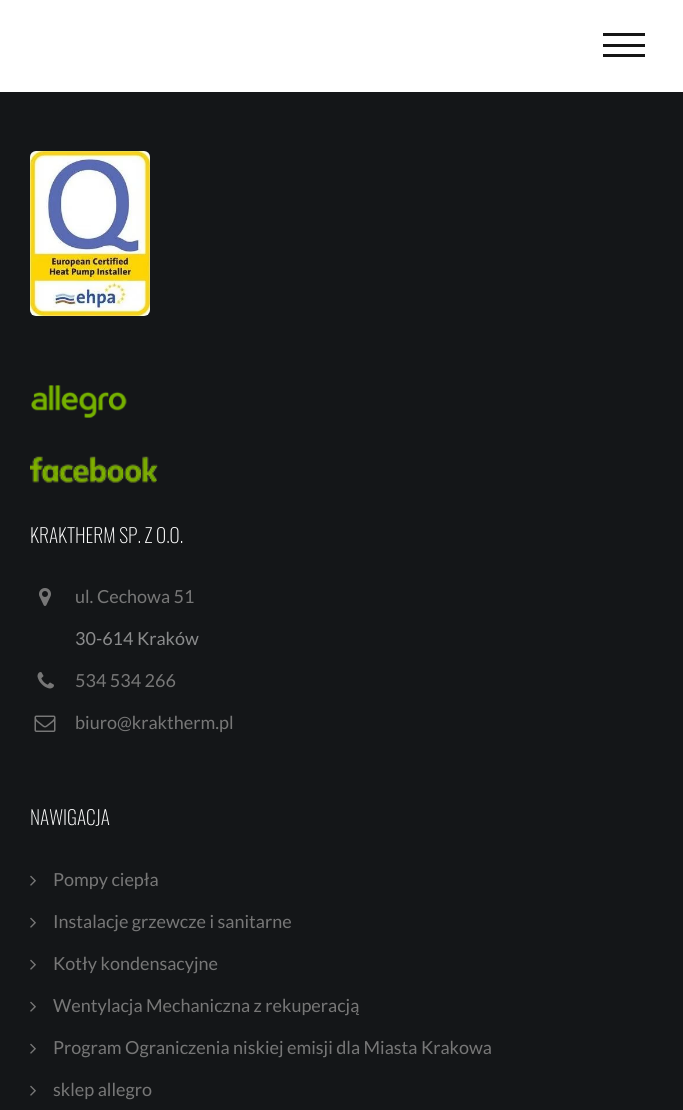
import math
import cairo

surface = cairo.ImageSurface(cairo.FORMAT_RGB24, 683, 1110)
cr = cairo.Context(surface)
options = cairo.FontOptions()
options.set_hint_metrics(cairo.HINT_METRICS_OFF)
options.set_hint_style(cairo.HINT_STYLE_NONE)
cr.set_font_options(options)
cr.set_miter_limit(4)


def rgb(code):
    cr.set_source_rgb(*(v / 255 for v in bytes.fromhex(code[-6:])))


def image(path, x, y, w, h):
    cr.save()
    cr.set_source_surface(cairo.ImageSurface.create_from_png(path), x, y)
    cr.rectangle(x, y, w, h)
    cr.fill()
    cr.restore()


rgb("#141618")
cr.paint()
for x, y, w, h, color in [
    (0, 0, 683, 92, "#ffffff"),
    (603, 44, 42, 3, "#151515"),
    (603, 33, 42, 3, "#151515"),
    (603, 54, 42, 3, "#151515"),
]:
    rgb(color)
    cr.rectangle(x, y, w, h)
    cr.fill()
image("img/1.png", 30, 151, 120, 165)
image("img/2.png", 31, 385, 96, 33)
image("img/3.png", 30, 456, 128, 27)
image("img/4.png", 39, 588, 12, 18)
image("img/5.png", 37, 672, 17, 17)
image("img/6.png", 34, 715, 22, 17)
image("img/7.png", 30, 875, 6, 11)
image("img/7.png", 30, 917, 6, 11)
image("img/7.png", 30, 959, 6, 11)
image("img/7.png", 30, 1001, 6, 11)
image("img/7.png", 30, 1043, 6, 11)
image("img/7.png", 30, 1085, 6, 11)
cr.select_font_face("Oswald ExtraLight")
cr.set_font_size(19.5)
rgb("#ffffff")
cr.move_to(30, 543)
cr.show_text("KRAKTHERM SP. Z O.O.")
cr.select_font_face("Lato")
cr.set_font_size(18)
rgb("#777777")
cr.move_to(75, 603)
cr.show_text("ul. Cechowa 51")
rgb("#8a8b8c")
cr.move_to(75, 645)
cr.show_text("30-614 Kraków")
rgb("#777777")
cr.move_to(75, 687)
cr.show_text("534 534 266")
cr.move_to(75, 729)
cr.show_text("biuro@kraktherm.pl")
cr.select_font_face("Oswald ExtraLight")
cr.set_font_size(19.5)
rgb("#ffffff")
cr.move_to(30, 825)
cr.show_text("NAWIGACJA")
cr.select_font_face("Lato")
cr.set_font_size(18)
rgb("#777777")
for x, y, s in [
    (53, 886, "Pompy ciepła"),
    (53, 928, "Instalacje grzewcze i sanitarne"),
    (53, 970, "Kotły kondensacyjne"),
    (53, 1012, "Wentylacja Mechaniczna z rekuperacją"),
    (53, 1054, "Program Ograniczenia niskiej emisji dla Miasta Krakowa"),
    (53, 1096, "sklep allegro"),
]:
    cr.move_to(x, y)
    cr.show_text(s)
surface.write_to_png("page.png")
